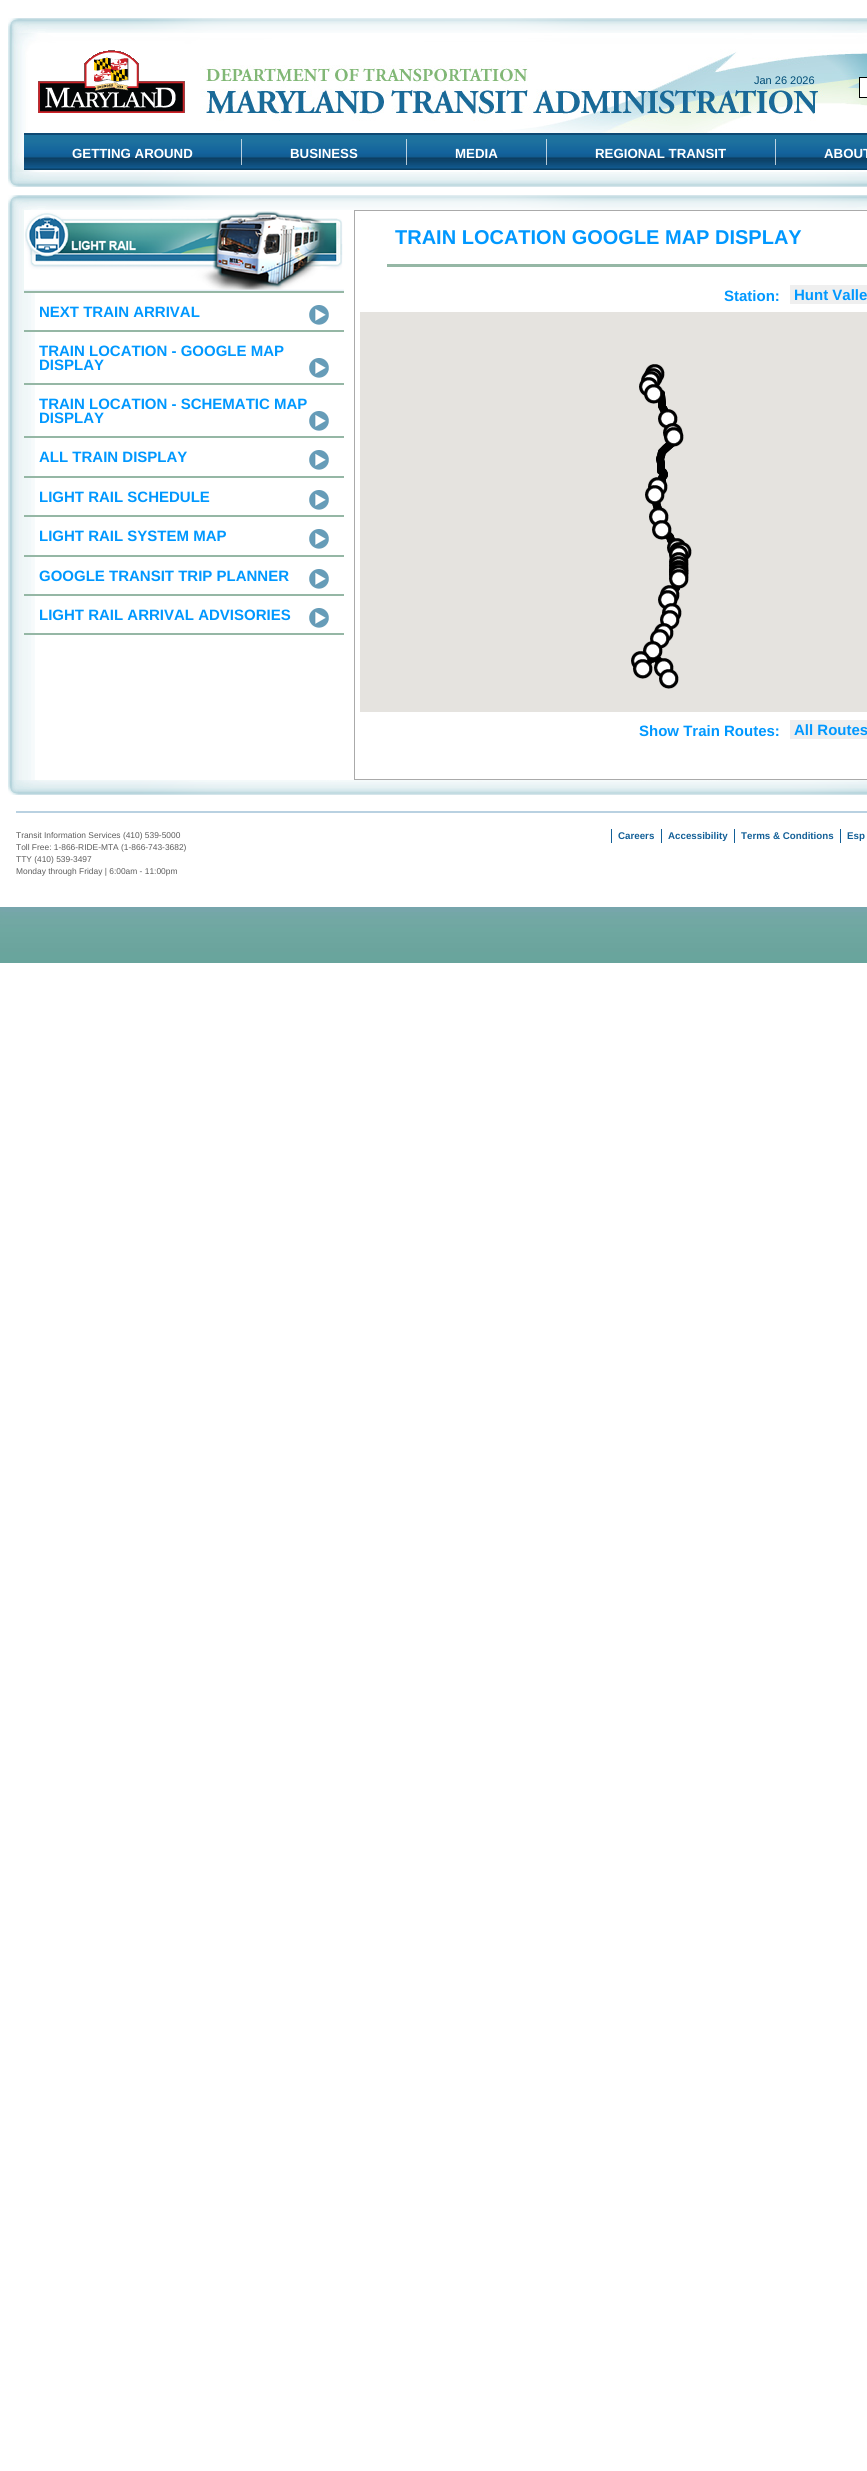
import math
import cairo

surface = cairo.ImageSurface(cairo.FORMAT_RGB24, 867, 2471)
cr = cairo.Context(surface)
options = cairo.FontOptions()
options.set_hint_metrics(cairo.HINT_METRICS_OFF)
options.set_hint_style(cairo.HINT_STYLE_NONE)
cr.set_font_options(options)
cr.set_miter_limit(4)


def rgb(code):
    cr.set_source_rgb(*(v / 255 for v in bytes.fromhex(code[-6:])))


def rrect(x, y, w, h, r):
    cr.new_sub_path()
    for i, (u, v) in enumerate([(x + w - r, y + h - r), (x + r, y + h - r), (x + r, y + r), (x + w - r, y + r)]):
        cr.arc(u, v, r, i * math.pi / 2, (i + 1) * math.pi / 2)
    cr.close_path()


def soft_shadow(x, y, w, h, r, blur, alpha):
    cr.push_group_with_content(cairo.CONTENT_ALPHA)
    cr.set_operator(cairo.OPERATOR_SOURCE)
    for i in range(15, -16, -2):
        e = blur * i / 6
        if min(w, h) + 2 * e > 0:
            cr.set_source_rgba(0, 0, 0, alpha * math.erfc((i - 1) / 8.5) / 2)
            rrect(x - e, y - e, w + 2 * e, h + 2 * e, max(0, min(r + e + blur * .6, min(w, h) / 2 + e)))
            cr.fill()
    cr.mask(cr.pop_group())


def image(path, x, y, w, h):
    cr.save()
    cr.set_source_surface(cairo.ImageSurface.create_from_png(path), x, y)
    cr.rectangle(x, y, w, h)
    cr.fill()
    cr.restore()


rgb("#ffffff")
cr.paint()
image("img/1.png", 0, 907, 867, 56)
rgb("#7aa1b5")
soft_shadow(0, 0, 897, 907, 0, 10, 1)
rgb("#ffffff")
cr.rectangle(0, 0, 867, 907)
cr.fill()
image("img/2.png", 8, 18, 859, 15)
image("img/3.png", 8, 33, 859, 139)
image("img/4.png", 38, 50, 147, 63)
cr.rectangle(859.5, 77.5, 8, 20)
cr.fill_preserve()
rgb("#000000")
cr.set_line_width(1)
cr.stroke()
image("img/5.png", 24, 135, 843, 35)
rgb("#0e4973")
cr.rectangle(24, 133, 843, 2)
cr.fill()
image("img/6.png", 241, 139, 1, 26)
image("img/6.png", 406, 139, 1, 26)
image("img/6.png", 546, 139, 1, 26)
image("img/6.png", 775, 139, 1, 26)
image("img/7.png", 8, 172, 859, 15)
image("img/2.png", 8, 195, 859, 15)
image("img/8.png", 8, 210, 27, 570)
image("img/9.png", 24, 210, 320, 81)
rgb("#95b7a5")
cr.rectangle(24, 291, 320, 2)
cr.fill()
image("img/10.png", 309, 305, 20, 20)
cr.rectangle(24, 330, 320, 2)
cr.fill()
image("img/10.png", 309, 358, 20, 20)
cr.rectangle(24, 383, 320, 2)
cr.fill()
image("img/10.png", 309, 411, 20, 20)
cr.rectangle(24, 436, 320, 2)
cr.fill()
image("img/10.png", 309, 450, 20, 20)
cr.rectangle(24, 476, 320, 2)
cr.fill()
image("img/10.png", 309, 490, 20, 20)
cr.rectangle(24, 515, 320, 2)
cr.fill()
image("img/10.png", 309, 529, 20, 20)
cr.rectangle(24, 555, 320, 2)
cr.fill()
image("img/10.png", 309, 569, 20, 20)
cr.rectangle(24, 594, 320, 2)
cr.fill()
image("img/10.png", 309, 608, 20, 20)
cr.rectangle(24, 633, 320, 2)
cr.fill()
cr.rectangle(354.5, 210.5, 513, 569)
rgb("#aaaaaa")
cr.stroke()
for x, y, w, h, color in [
    (387, 264, 480, 3, "#95b7a5"),
    (790, 285, 77, 19, "#efefef"),
    (360, 312, 507, 400, "#e5e3df"),
]:
    rgb(color)
    cr.rectangle(x, y, w, h)
    cr.fill()
image("img/11.png", 645, 364, 20, 18)
image("img/12.png", 643, 368, 20, 18)
image("img/13.png", 641, 371, 20, 15)
image("img/44.png", 656, 390, 8, 90)
image("img/14.png", 639, 377, 20, 19)
image("img/15.png", 644, 384, 19, 20)
image("img/45.png", 664, 391, 11, 91)
image("img/16.png", 658, 409, 20, 20)
image("img/17.png", 663, 423, 20, 16)
image("img/18.png", 664, 427, 20, 20)
image("img/19.png", 648, 477, 20, 18)
image("img/46.png", 650, 502, 14, 185)
image("img/20.png", 645, 485, 20, 20)
image("img/21.png", 649, 507, 20, 19)
image("img/47.png", 664, 532, 17, 156)
image("img/22.png", 652, 520, 20, 20)
image("img/23.png", 667, 538, 19, 17)
image("img/24.png", 669, 542, 15, 15)
image("img/25.png", 672, 542, 20, 18)
image("img/26.png", 669, 545, 20, 15)
image("img/27.png", 669, 552, 20, 15)
image("img/28.png", 669, 556, 20, 15)
image("img/29.png", 669, 560, 20, 15)
image("img/30.png", 669, 562, 20, 15)
image("img/31.png", 669, 565, 20, 15)
image("img/32.png", 669, 569, 20, 20)
image("img/33.png", 660, 585, 20, 18)
image("img/34.png", 658, 590, 20, 19)
image("img/35.png", 662, 603, 20, 17)
image("img/36.png", 660, 610, 20, 20)
image("img/37.png", 654, 623, 20, 19)
image("img/38.png", 650, 629, 20, 20)
image("img/40.png", 643, 641, 20, 17)
image("img/39.png", 631, 651, 19, 17)
image("img/41.png", 654, 658, 20, 19)
image("img/42.png", 633, 659, 20, 20)
image("img/43.png", 659, 669, 20, 20)
rgb("#efefef")
cr.rectangle(790, 720, 77, 19)
cr.fill()
image("img/7.png", 8, 780, 859, 15)
for x, y, w, h, color in [
    (16, 811, 851, 2, "#b9d1e1"),
    (611, 829, 1, 14, "#125f97"),
    (661, 829, 1, 14, "#125f97"),
    (734, 829, 1, 14, "#125f97"),
    (840, 829, 1, 14, "#125f97"),
]:
    rgb(color)
    cr.rectangle(x, y, w, h)
    cr.fill()
cr.select_font_face("Liberation Sans")
cr.set_font_size(11)
rgb("#004b76")
cr.move_to(754, 84)
cr.show_text("Jan 26 2026")
cr.select_font_face("Liberation Sans", cairo.FONT_SLANT_NORMAL, cairo.FONT_WEIGHT_BOLD)
cr.set_font_size(13.25)
rgb("#ffffff")
for x, y, s in [
    (72, 158, "GETTING AROUND"),
    (290, 158, "BUSINESS"),
    (455, 158, "MEDIA"),
    (595, 158, "REGIONAL TRANSIT"),
    (824, 158, "ABOUT"),
]:
    cr.move_to(x, y)
    cr.show_text(s)
cr.set_font_size(15)
rgb("#0098ff")
for x, y, s in [
    (39, 317, "NEXT TRAIN ARRIVAL"),
    (39, 356, "TRAIN LOCATION - GOOGLE MAP"),
    (39, 370, "DISPLAY"),
    (39, 409, "TRAIN LOCATION - SCHEMATIC MAP"),
    (39, 423, "DISPLAY"),
    (39, 462, "ALL TRAIN DISPLAY"),
    (39, 502, "LIGHT RAIL SCHEDULE"),
    (39, 541, "LIGHT RAIL SYSTEM MAP"),
    (39, 581, "GOOGLE TRANSIT TRIP PLANNER"),
    (39, 620, "LIGHT RAIL ARRIVAL ADVISORIES"),
]:
    cr.move_to(x, y)
    cr.show_text(s)
cr.set_font_size(20)
cr.move_to(395, 244)
cr.show_text("TRAIN LOCATION GOOGLE MAP DISPLAY")
cr.set_font_size(15)
for x, y, s in [
    (724, 301, "Station:"),
    (794, 300, "Hunt Valle"),
    (639, 736, "Show Train Routes:"),
    (794, 735, "All Routes"),
]:
    cr.move_to(x, y)
    cr.show_text(s)
cr.select_font_face("Liberation Sans")
cr.set_font_size(8.4)
rgb("#5c5c5c")
for x, y, s in [
    (16, 838, "Transit Information Services (410) 539-5000"),
    (16, 850, "Toll Free: 1-866-RIDE-MTA (1-866-743-3682)"),
    (16, 862, "TTY (410) 539-3497"),
    (16, 874, "Monday through Friday | 6:00am - 11:00pm"),
]:
    cr.move_to(x, y)
    cr.show_text(s)
cr.select_font_face("Liberation Sans", cairo.FONT_SLANT_NORMAL, cairo.FONT_WEIGHT_BOLD)
cr.set_font_size(9.75)
rgb("#125f97")
for x, y, s in [
    (618, 839, "Careers"),
    (668, 839, "Accessibility"),
    (741, 839, "Terms & Conditions"),
    (847, 839, "Esp"),
]:
    cr.move_to(x, y)
    cr.show_text(s)
surface.write_to_png("page.png")
